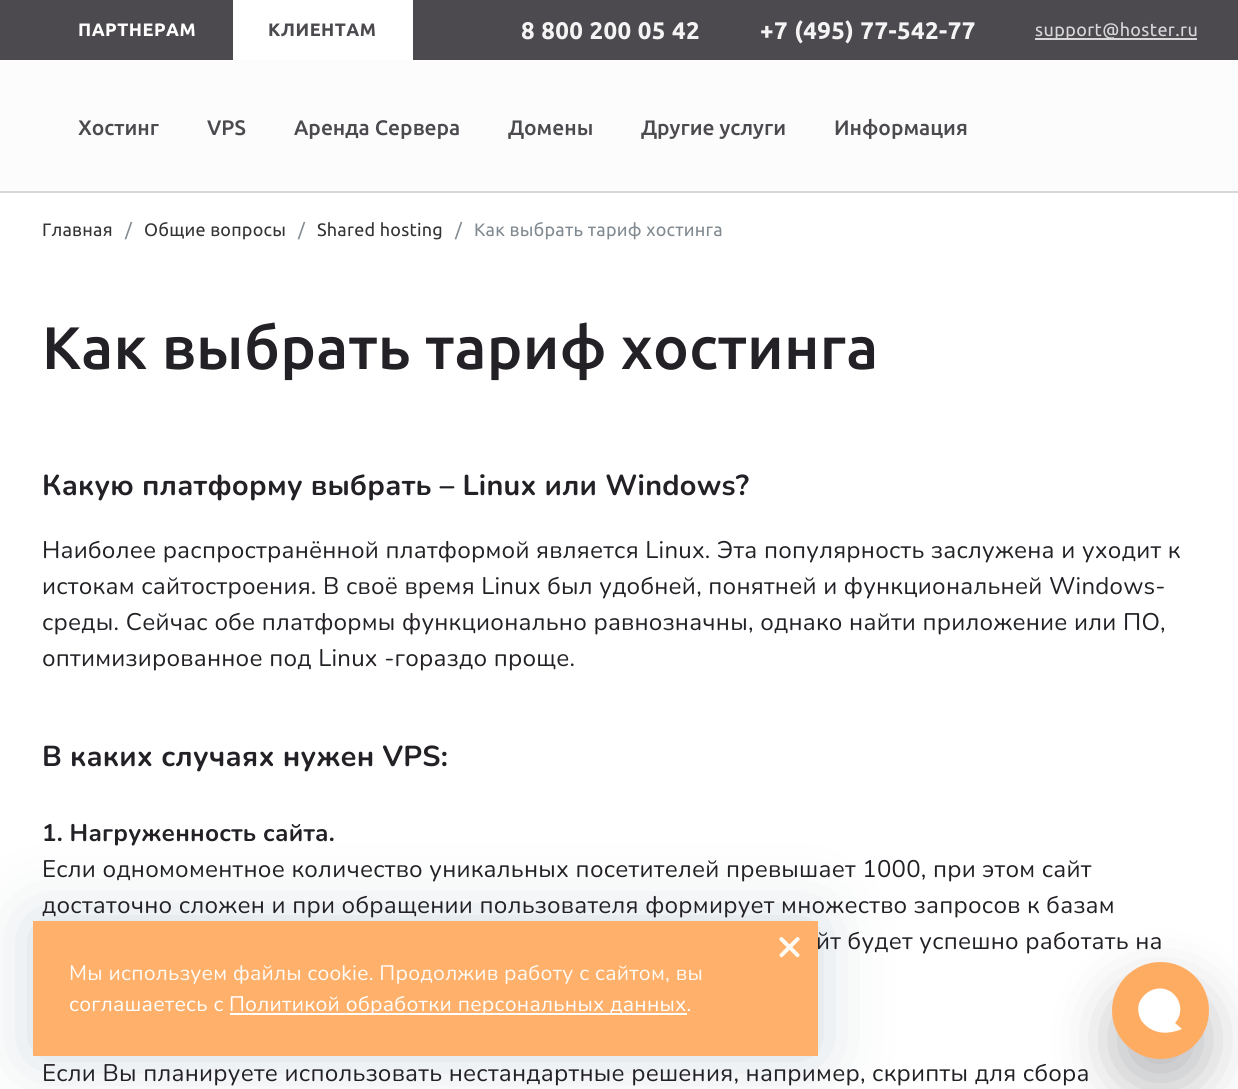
import math
import cairo

surface = cairo.ImageSurface(cairo.FORMAT_RGB24, 1238, 1089)
cr = cairo.Context(surface)
options = cairo.FontOptions()
options.set_hint_metrics(cairo.HINT_METRICS_OFF)
options.set_hint_style(cairo.HINT_STYLE_NONE)
cr.set_font_options(options)
cr.set_miter_limit(4)


def rgb(code):
    cr.set_source_rgb(*(v / 255 for v in bytes.fromhex(code[-6:])))


def tracked(x, y, s, letter, word):
    cr.move_to(x, y)
    for ch in s:
        cr.show_text(ch)
        cr.rel_move_to(letter + word * (ch == ' '), 0)


def rrect(x, y, w, h, r):
    cr.new_sub_path()
    for i, (u, v) in enumerate([(x + w - r, y + h - r), (x + r, y + h - r), (x + r, y + r), (x + w - r, y + r)]):
        cr.arc(u, v, r, i * math.pi / 2, (i + 1) * math.pi / 2)
    cr.close_path()


def soft_shadow(x, y, w, h, r, blur, alpha):
    cr.push_group_with_content(cairo.CONTENT_ALPHA)
    cr.set_operator(cairo.OPERATOR_SOURCE)
    for i in range(15, -16, -2):
        e = blur * i / 6
        if min(w, h) + 2 * e > 0:
            cr.set_source_rgba(0, 0, 0, alpha * math.erfc((i - 1) / 8.5) / 2)
            rrect(x - e, y - e, w + 2 * e, h + 2 * e, max(0, min(r + e + blur * .6, min(w, h) / 2 + e)))
            cr.fill()
    cr.mask(cr.pop_group())


rgb("#ffffff")
cr.paint()
for x, y, w, h, color in [
    (0, 0, 1238, 60, "#4c4a4f"),
    (233, 0, 180, 60, "#ffffff"),
    (1035, 38, 162, 2, "#d8d8d9"),
    (0, 60, 1238, 131, "#fcfcfc"),
    (0, 191, 1238, 2, "#d8d8d9"),
]:
    rgb(color)
    cr.rectangle(x, y, w, h)
    cr.fill()
cr.save()
cr.set_fill_rule(cairo.FILL_RULE_EVEN_ODD)
cr.new_path()
cr.move_to(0, 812)
cr.line_to(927, 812)
cr.line_to(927, 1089)
cr.line_to(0, 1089)
cr.close_path()
cr.move_to(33, 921)
cr.line_to(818, 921)
cr.line_to(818, 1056)
cr.line_to(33, 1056)
cr.close_path()
cr.clip()
rgb("#113856")
soft_shadow(33, 921, 785, 135, 0, 36, 0.19)
cr.restore()
rgb("#22242b")
soft_shadow(1112, 990, 97, 98, 48.5, 28.5, 0.3)
rgb("#ffac63")
cr.arc(1160.5, 1010.5, 48.5, 0, 2 * math.pi)
cr.fill()
rgb("#ffffff")
cr.set_fill_rule(cairo.FILL_RULE_EVEN_ODD)
cr.new_path()
cr.move_to(1141, 1020)
cr.curve_to(1141, 1020, 1153, 1041, 1182, 1029)
cr.line_to(1175, 1023)
cr.curve_to(1189, 1007, 1173, 982, 1152, 990)
cr.curve_to(1147, 992, 1143, 996, 1140, 1001)
cr.curve_to(1137, 1007, 1138, 1014, 1141, 1020)
cr.close_path()
cr.fill()
cr.select_font_face("Ubuntu", cairo.FONT_SLANT_NORMAL, cairo.FONT_WEIGHT_BOLD)
cr.set_font_size(18)
tracked(78, 36, "ПАРТНЕРАМ", 0.5, 0)
rgb("#4c4a4f")
tracked(268, 36, "КЛИЕНТАМ", 0.5, 0)
cr.set_font_size(24)
rgb("#f4f4f4")
tracked(521, 39, "8 800 200 05 42", 0.4, 0)
tracked(760, 39, "+7 (495) 77-542-77", 0.4, 0)
cr.select_font_face("Ubuntu")
cr.set_font_size(18)
rgb("#d8d8d9")
tracked(1035, 36, "support@hoster.ru", 0.4, 0)
cr.select_font_face("Ubuntu Medium")
cr.set_font_size(21)
rgb("#4c4a4f")
for x, y, s in [
    (78, 135, "Хостинг"),
    (207, 135, "VPS"),
    (294, 135, "Аренда Сервера"),
    (508, 135, "Домены"),
    (641, 135, "Другие услуги"),
    (834, 135, "Информация"),
]:
    cr.move_to(x, y)
    cr.show_text(s)
cr.select_font_face("Ubuntu")
cr.set_font_size(18)
rgb("#343434")
tracked(42, 236, "Главная", 0.25, 0)
rgb("#818a91")
tracked(125, 236, "/", 0.25, 0)
rgb("#343434")
tracked(144, 236, "Общие вопросы", 0.25, 0)
rgb("#818a91")
tracked(298, 236, "/", 0.25, 0)
rgb("#343434")
tracked(317, 236, "Shared hosting", 0.25, 0)
rgb("#818a91")
tracked(455, 236, "/", 0.25, 0)
tracked(474, 236, "Как выбрать тариф хостинга", 0.25, 0)
cr.select_font_face("Ubuntu Medium")
cr.set_font_size(60)
rgb("#242126")
tracked(42, 369, "Как выбрать тариф хостинга", 0.25, 0)
cr.select_font_face("Nunito", cairo.FONT_SLANT_NORMAL, cairo.FONT_WEIGHT_BOLD)
cr.set_font_size(28.8)
tracked(42, 495, "Какую платформу выбрать – Linux или Windows?", 0.25, 0)
cr.select_font_face("Nunito")
cr.set_font_size(24)
for x, y, s in [
    (42, 558, "Наиболее распространённой платформой является Linux. Эта популярность заслужена и уходит к"),
    (42, 594, "истокам сайтостроения. В своё время Linux был удобней, понятней и функциональней Windows-"),
    (42, 630, "среды. Сейчас обе платформы функционально равнозначны, однако найти приложение или ПО,"),
    (42, 666, "оптимизированное под Linux -гораздо проще."),
]:
    tracked(x, y, s, 0.25, 0)
cr.select_font_face("Nunito", cairo.FONT_SLANT_NORMAL, cairo.FONT_WEIGHT_BOLD)
cr.set_font_size(28.8)
tracked(42, 766, "В каких случаях нужен VPS:", 0.25, 0)
cr.set_font_size(24)
tracked(42, 841, "1. Нагруженность сайта.", 0.25, 0)
cr.select_font_face("Nunito")
for x, y, s in [
    (42, 877, "Если одномоментное количество уникальных посетителей превышает 1000, при этом сайт"),
    (42, 913, "достаточно сложен и при обращении пользователя формирует множество запросов к базам"),
    (816, 949, "йт будет успешно работать на"),
    (42, 1081, "Если Вы планируете использовать нестандартные решения, например, скрипты для сбора"),
]:
    tracked(x, y, s, 0.25, 0)
cr.set_source_rgba(1, 0.675, 0.388, 0.95)
cr.rectangle(33, 921, 785, 135)
cr.fill()
cr.select_font_face("Nunito", cairo.FONT_SLANT_NORMAL, cairo.FONT_WEIGHT_BOLD)
cr.set_font_size(45)
rgb("#fffbf7")
cr.move_to(776, 960)
cr.show_text("×")
cr.select_font_face("Nunito")
cr.set_font_size(21)
tracked(69, 980, "Мы используем файлы cookie. Продолжив работу с сайтом, вы", 0.25, 0)
rgb("#ffffff")
tracked(69, 1011, "соглашаетесь с", 0.25, 0)
cr.rectangle(230, 1013, 457, 2)
cr.fill()
tracked(229, 1011, "Политикой обработки персональных данных.", 0.25, 0)
surface.write_to_png("page.png")
